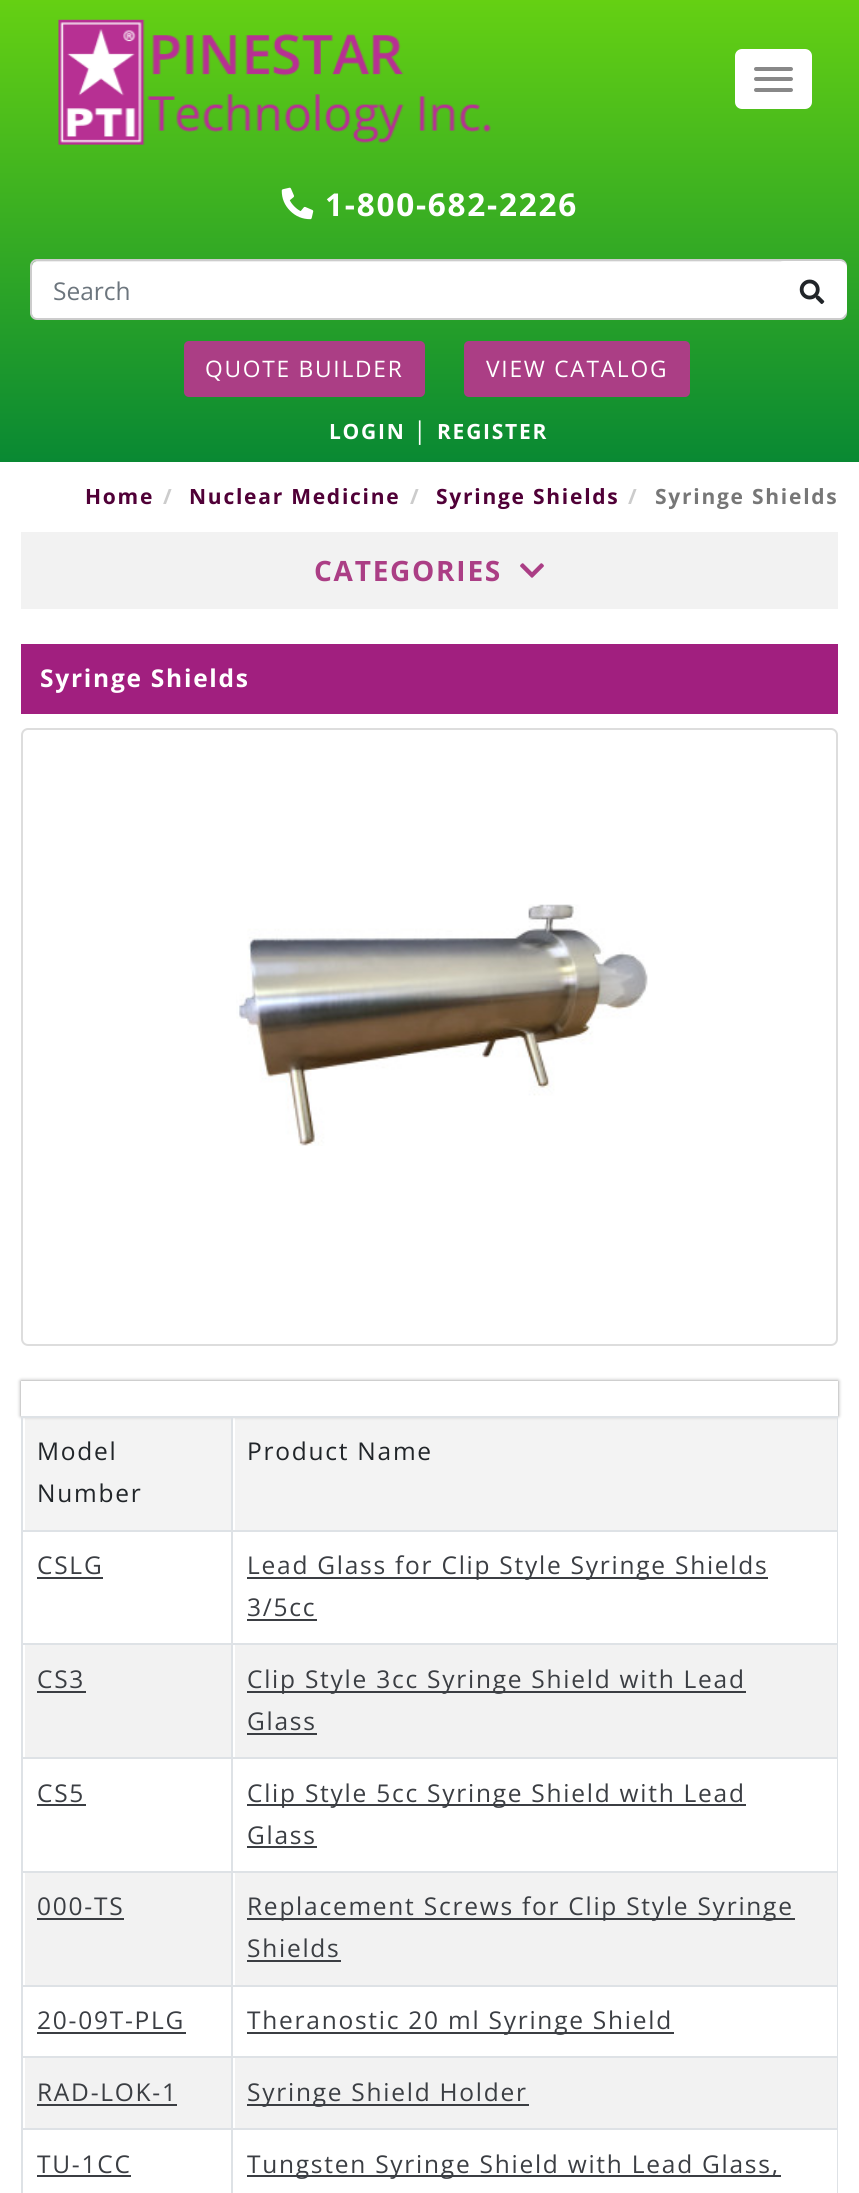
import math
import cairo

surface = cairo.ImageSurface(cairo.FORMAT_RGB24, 859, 2193)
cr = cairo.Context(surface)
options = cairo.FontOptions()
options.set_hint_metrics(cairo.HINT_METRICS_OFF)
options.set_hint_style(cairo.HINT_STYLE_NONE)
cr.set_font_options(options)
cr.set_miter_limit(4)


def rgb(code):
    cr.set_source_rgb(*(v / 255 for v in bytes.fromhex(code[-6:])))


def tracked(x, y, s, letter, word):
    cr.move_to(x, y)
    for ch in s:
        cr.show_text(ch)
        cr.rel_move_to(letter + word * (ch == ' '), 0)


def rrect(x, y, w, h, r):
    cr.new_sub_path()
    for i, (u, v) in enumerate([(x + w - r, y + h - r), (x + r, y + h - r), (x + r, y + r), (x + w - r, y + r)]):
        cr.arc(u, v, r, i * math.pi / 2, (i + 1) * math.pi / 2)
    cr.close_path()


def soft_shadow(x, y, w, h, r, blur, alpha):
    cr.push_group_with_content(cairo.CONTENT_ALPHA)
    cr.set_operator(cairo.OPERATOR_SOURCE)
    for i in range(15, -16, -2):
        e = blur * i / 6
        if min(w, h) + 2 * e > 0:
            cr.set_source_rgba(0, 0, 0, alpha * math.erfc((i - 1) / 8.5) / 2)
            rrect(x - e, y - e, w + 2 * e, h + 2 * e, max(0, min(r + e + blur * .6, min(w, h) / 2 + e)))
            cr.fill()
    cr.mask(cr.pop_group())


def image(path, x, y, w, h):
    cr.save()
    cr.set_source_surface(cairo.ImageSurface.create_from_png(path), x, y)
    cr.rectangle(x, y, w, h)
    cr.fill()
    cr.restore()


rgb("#ffffff")
cr.paint()
gradient = cairo.LinearGradient(430, 462, 430, 0)
gradient.add_color_stop_rgba(0, 0.035, 0.537, 0.2, 1)
gradient.add_color_stop_rgba(1, 0.396, 0.816, 0.075, 1)
cr.set_source(gradient)
cr.rectangle(0, 0, 859, 462)
cr.fill()
image("img/1.png", 58, 19, 433, 126)
rgb("#ffffff")
rrect(735, 49, 77, 60, 7)
cr.fill()
rgb("#888888")
rrect(754, 67, 39, 4, 2)
cr.fill()
rrect(754, 77, 39, 4, 2)
cr.fill()
rrect(754, 88, 39, 4, 2)
cr.fill()
image("img/2.png", 281, 187, 33, 33)
rgb("#ffffff")
rrect(32, 261, 813, 58, 5)
cr.fill()
cr.set_source_rgba(0, 0, 0, 0.07)
cr.new_path()
cr.move_to(37, 262)
cr.line_to(840, 262)
cr.curve_to(843, 262, 845, 265, 845, 268)
cr.line_to(845, 266)
cr.curve_to(845, 263, 843, 261, 840, 261)
cr.line_to(37, 261)
cr.curve_to(34, 261, 32, 263, 32, 266)
cr.line_to(32, 268)
cr.curve_to(32, 265, 34, 262, 37, 262)
cr.close_path()
cr.fill()
rrect(31, 260, 815, 59, 6)
rgb("#cccccc")
cr.stroke()
rgb("#ffffff")
rrect(777, 261, 70, 56, 7)
cr.fill()
image("img/3.png", 799, 279, 26, 25)
rgb("#ab3e85")
rrect(184, 341, 241, 56, 5)
cr.fill()
rrect(464, 341, 226, 56, 5)
cr.fill()
rgb("#f2f2f2")
cr.rectangle(21, 532, 817, 77)
cr.fill()
image("img/4.png", 520, 563, 24, 15)
rgb("#a11f7f")
cr.rectangle(21, 644, 817, 70)
cr.fill()
rrect(22, 729, 815, 616, 6)
rgb("#dddddd")
cr.stroke()
image("img/5.png", 236, 904, 412, 242)
rgb("#8b8b8b")
soft_shadow(21, 1381, 817, 35, 0, 2, 1)
rgb("#ffffff")
cr.rectangle(21, 1381, 817, 35)
cr.fill()
rgb("#dee2e6")
cr.rectangle(21, 1416, 817, 2)
cr.fill()
cr.set_source_rgba(0, 0, 0, 0.05)
cr.rectangle(25, 1418, 206, 112)
cr.fill()
cr.rectangle(235, 1418, 602, 112)
cr.fill()
rgb("#dee2e6")
cr.rectangle(21, 1530, 817, 2)
cr.fill()
rgb("#3b3e43")
cr.rectangle(37, 1577, 66, 2)
cr.rectangle(247, 1577, 521, 2)
cr.rectangle(247, 1619, 70, 2)
cr.fill()
rgb("#dee2e6")
cr.rectangle(21, 1643, 817, 2)
cr.fill()
rgb("#f2f2f2")
cr.rectangle(25, 1645, 206, 112)
cr.fill()
rgb("#3b3e43")
cr.rectangle(37, 1691, 49, 2)
cr.fill()
rgb("#f2f2f2")
cr.rectangle(235, 1645, 602, 112)
cr.fill()
rgb("#3b3e43")
cr.rectangle(247, 1691, 499, 2)
cr.rectangle(247, 1733, 70, 2)
cr.fill()
rgb("#dee2e6")
cr.rectangle(21, 1757, 817, 2)
cr.fill()
rgb("#3b3e43")
cr.rectangle(37, 1804, 49, 2)
cr.rectangle(247, 1804, 499, 2)
cr.rectangle(247, 1846, 70, 2)
cr.fill()
rgb("#dee2e6")
cr.rectangle(21, 1871, 817, 2)
cr.fill()
rgb("#f2f2f2")
cr.rectangle(25, 1873, 206, 112)
cr.fill()
rgb("#3b3e43")
cr.rectangle(37, 1918, 87, 2)
cr.fill()
rgb("#f2f2f2")
cr.rectangle(235, 1873, 602, 112)
cr.fill()
rgb("#3b3e43")
cr.rectangle(247, 1918, 548, 2)
cr.rectangle(247, 1960, 94, 2)
cr.fill()
rgb("#dee2e6")
cr.rectangle(21, 1985, 817, 2)
cr.fill()
rgb("#3b3e43")
cr.rectangle(37, 2032, 149, 2)
cr.rectangle(247, 2032, 427, 2)
cr.fill()
rgb("#dee2e6")
cr.rectangle(21, 2056, 817, 2)
cr.fill()
rgb("#f2f2f2")
cr.rectangle(25, 2058, 206, 70)
cr.fill()
rgb("#3b3e43")
cr.rectangle(37, 2104, 140, 2)
cr.fill()
rgb("#f2f2f2")
cr.rectangle(235, 2058, 602, 70)
cr.fill()
rgb("#3b3e43")
cr.rectangle(247, 2104, 282, 2)
cr.fill()
rgb("#dee2e6")
cr.rectangle(21, 2128, 817, 2)
cr.rectangle(21, 1416, 2, 777)
cr.fill()
rgb("#3b3e43")
cr.rectangle(37, 2175, 94, 2)
cr.fill()
rgb("#dee2e6")
cr.rectangle(837, 1416, 1, 777)
cr.rectangle(231, 1416, 2, 777)
cr.fill()
rgb("#3b3e43")
cr.rectangle(247, 2175, 534, 2)
cr.fill()
cr.select_font_face("Open Sans", cairo.FONT_SLANT_NORMAL, cairo.FONT_WEIGHT_BOLD)
cr.set_font_size(31.5)
rgb("#ffffff")
tracked(325, 216, "1-800-682-2226", 1.75, 0)
cr.select_font_face("Open Sans")
cr.set_font_size(24.5)
rgb("#6c757d")
cr.move_to(53, 300)
cr.show_text("Search")
cr.set_font_size(22.75)
rgb("#ffffff")
tracked(205, 377, "QUOTE BUILDER", 1.75, 0)
tracked(486, 377, "VIEW CATALOG", 1.75, 0)
cr.select_font_face("Open Sans", cairo.FONT_SLANT_NORMAL, cairo.FONT_WEIGHT_BOLD)
cr.set_font_size(21)
tracked(329, 439, "LOGIN", 1.75, 0)
cr.select_font_face("Open Sans")
cr.set_font_size(24.5)
tracked(413, 439, "|", 1.75, 0)
cr.select_font_face("Open Sans", cairo.FONT_SLANT_NORMAL, cairo.FONT_WEIGHT_BOLD)
cr.set_font_size(21)
tracked(437, 439, "REGISTER", 1.75, 0)
rgb("#500037")
tracked(85, 504, "Home", 1.75, 0)
rgb("#cccccc")
tracked(163, 504, "/", 1.75, 0)
rgb("#500037")
tracked(189, 504, "Nuclear Medicine", 1.75, 0)
rgb("#cccccc")
tracked(410, 504, "/", 1.75, 0)
rgb("#500037")
tracked(436, 504, "Syringe Shields", 1.75, 0)
rgb("#cccccc")
tracked(628, 504, "/", 1.75, 0)
rgb("#777777")
tracked(655, 504, "Syringe Shields", 1.75, 0)
cr.set_font_size(28)
rgb("#ab3e85")
tracked(314, 581, "CATEGORIES", 1.75, 0)
cr.set_font_size(24.5)
rgb("#ffffff")
tracked(40, 687, "Syringe Shields", 1.75, 0)
cr.select_font_face("Open Sans")
rgb("#212529")
for x, y, s in [
    (37, 1460, "Model"),
    (37, 1502, "Number"),
    (247, 1460, "Product Name"),
]:
    tracked(x, y, s, 1.75, 0)
rgb("#3b3e43")
for x, y, s in [
    (37, 1574, "CSLG"),
    (247, 1574, "Lead Glass for Clip Style Syringe Shields"),
    (247, 1616, "3/5cc"),
    (37, 1688, "CS3"),
    (247, 1688, "Clip Style 3cc Syringe Shield with Lead"),
    (247, 1730, "Glass"),
    (37, 1802, "CS5"),
    (247, 1802, "Clip Style 5cc Syringe Shield with Lead"),
    (247, 1844, "Glass"),
    (37, 1915, "000-TS"),
    (247, 1915, "Replacement Screws for Clip Style Syringe"),
    (247, 1957, "Shields"),
    (37, 2029, "20-09T-PLG"),
    (247, 2029, "Theranostic 20 ml Syringe Shield"),
    (37, 2101, "RAD-LOK-1"),
    (247, 2101, "Syringe Shield Holder"),
    (37, 2173, "TU-1CC"),
    (247, 2173, "Tungsten Syringe Shield with Lead Glass,"),
]:
    tracked(x, y, s, 1.75, 0)
surface.write_to_png("page.png")
